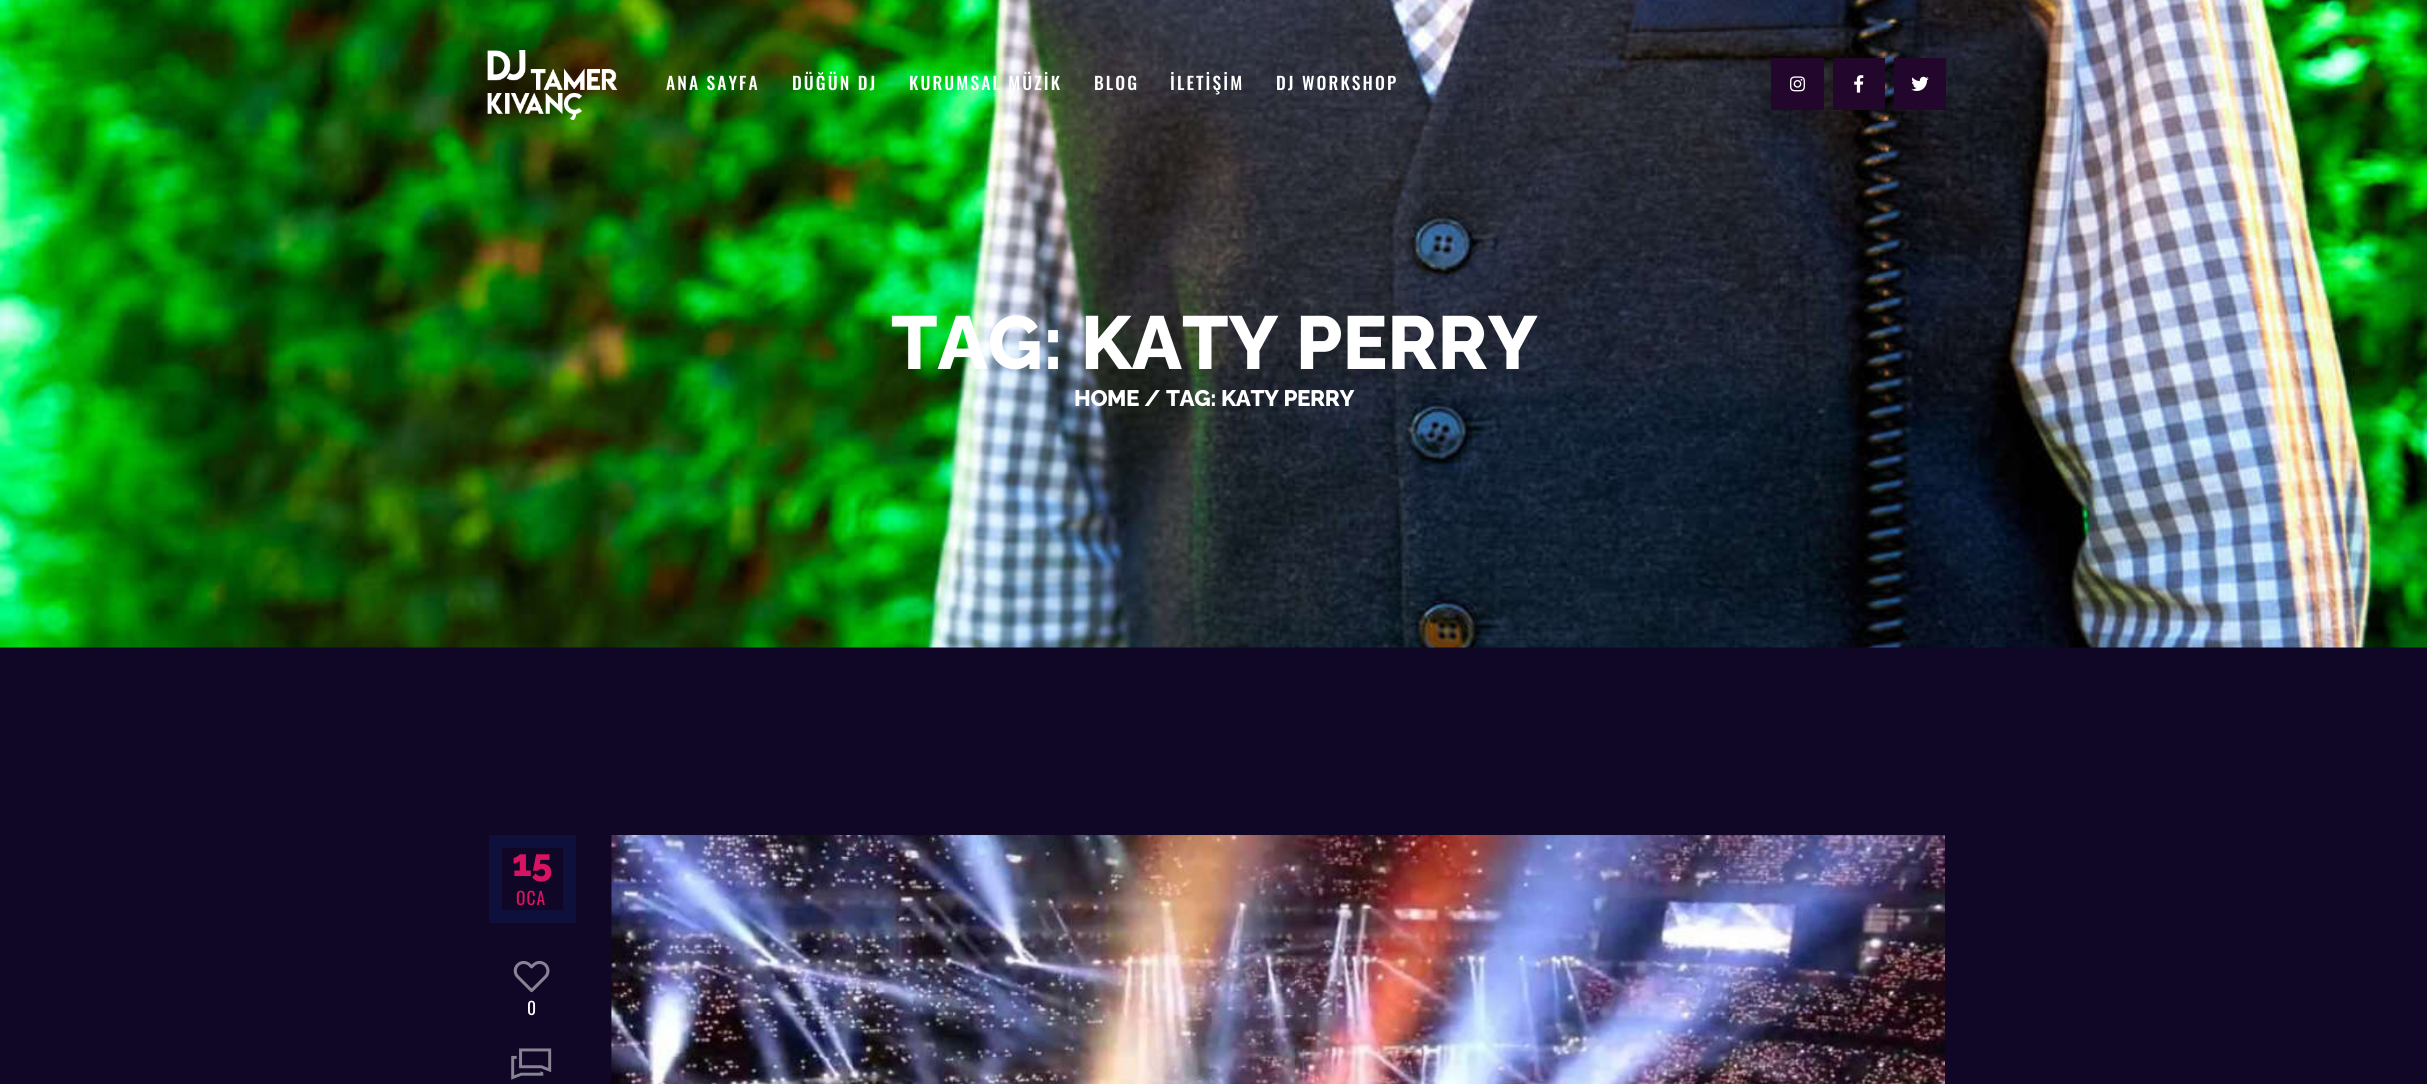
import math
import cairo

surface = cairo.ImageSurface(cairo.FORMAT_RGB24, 2427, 1084)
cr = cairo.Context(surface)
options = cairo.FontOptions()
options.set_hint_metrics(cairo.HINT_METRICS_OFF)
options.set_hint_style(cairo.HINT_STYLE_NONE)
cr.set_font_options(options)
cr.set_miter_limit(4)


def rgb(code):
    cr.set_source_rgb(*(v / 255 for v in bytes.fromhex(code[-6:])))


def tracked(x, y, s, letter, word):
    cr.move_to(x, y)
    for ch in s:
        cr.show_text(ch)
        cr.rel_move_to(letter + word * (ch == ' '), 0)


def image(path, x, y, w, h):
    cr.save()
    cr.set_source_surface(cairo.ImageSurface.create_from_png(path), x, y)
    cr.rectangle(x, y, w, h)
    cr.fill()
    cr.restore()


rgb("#100726")
cr.paint()
image("img/1.png", 0, 0, 2427, 648)
image("img/2.png", 487, 50, 131, 70)
rgb("#22062c")
cr.rectangle(1771, 58, 53, 52)
cr.fill()
image("img/3.png", 1790, 76, 15, 16)
cr.rectangle(1833, 58, 52, 52)
cr.fill()
image("img/4.png", 1854, 75, 10, 18)
cr.rectangle(1894, 58, 52, 52)
cr.fill()
image("img/5.png", 1911, 76, 18, 15)
cr.rectangle(495.5, 841.5, 74, 75)
rgb("#0f0f3b")
cr.set_line_width(13)
cr.stroke()
image("img/6.png", 513, 961, 37, 32)
image("img/7.png", 511, 1048, 41, 32)
image("img/8.png", 611, 835, 1334, 249)
cr.select_font_face("Oswald Medium")
cr.set_font_size(17.5)
rgb("#ffffff")
for x, y, s in [
    (666, 90, "ANA SAYFA"),
    (792, 90, "DÜĞÜN DJ"),
    (909, 90, "KURUMSAL MÜZİK"),
    (1094, 90, "BLOG"),
    (1170, 90, "İLETİŞİM"),
    (1276, 90, "DJ WORKSHOP"),
]:
    tracked(x, y, s, 2.1, 0)
cr.select_font_face("Raleway ExtraBold")
cr.set_font_size(75)
cr.move_to(891, 369)
cr.show_text("TAG: KATY PERRY")
cr.set_font_size(22.5)
for x, y, s in [
    (1074, 406, "HOME"),
    (1144, 406, "/"),
    (1166, 406, "TAG: KATY PERRY"),
]:
    tracked(x, y, s, -0.4, 0)
cr.set_font_size(38)
rgb("#d71362")
tracked(512, 876, "15", -0.4, 0)
cr.select_font_face("Oswald")
cr.set_font_size(17.5)
tracked(516, 905, "OCA", 1, 0)
rgb("#ffffff")
tracked(527, 1015, "0", 1, 0)
surface.write_to_png("page.png")
